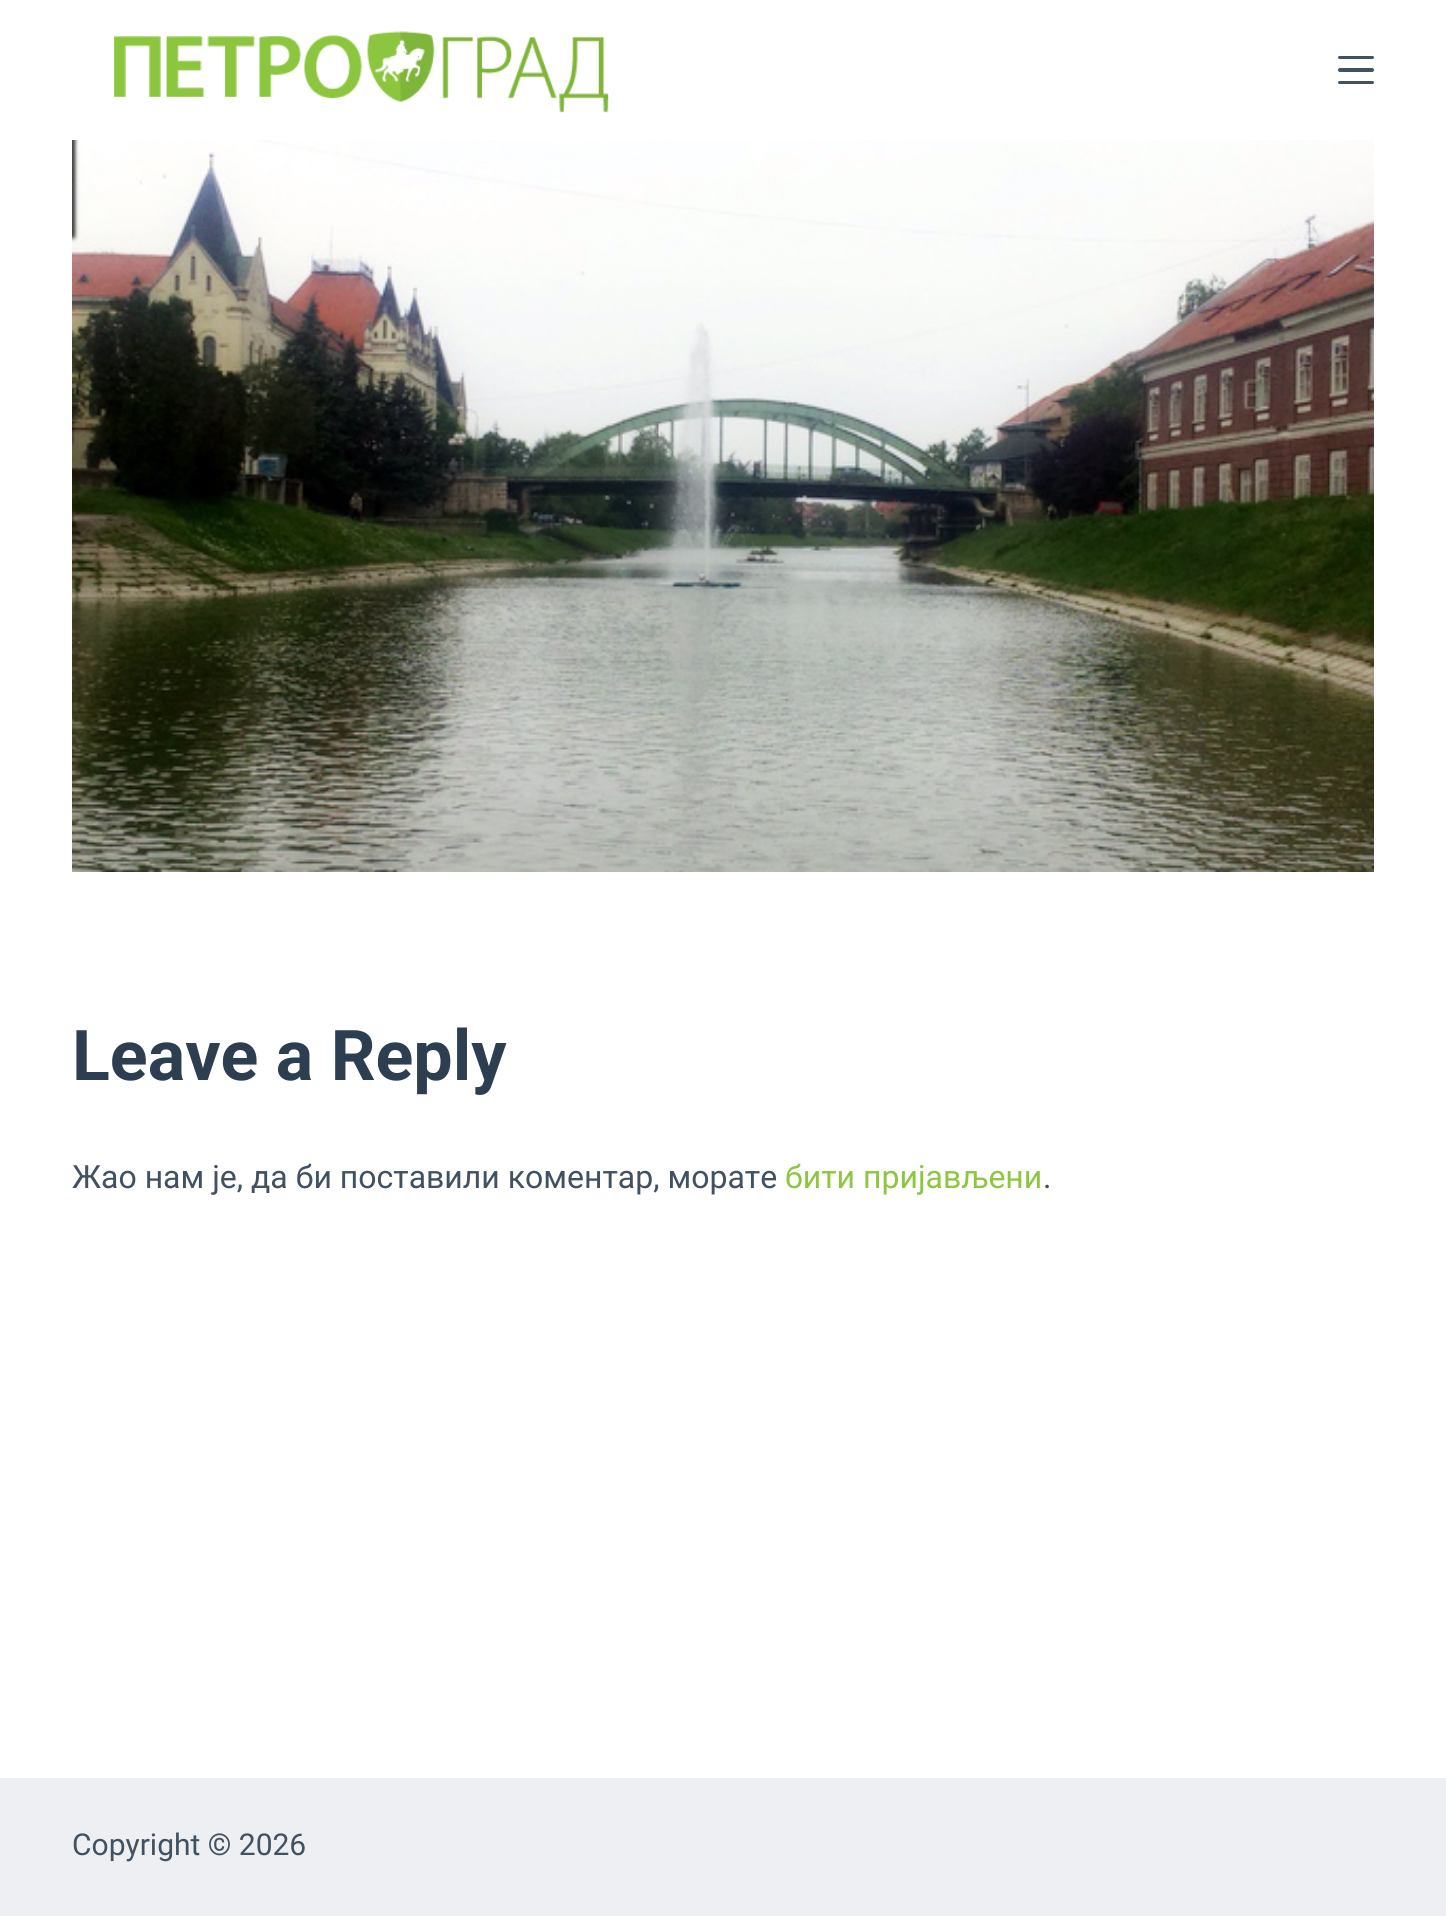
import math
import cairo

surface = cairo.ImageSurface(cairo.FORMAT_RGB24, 1446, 1916)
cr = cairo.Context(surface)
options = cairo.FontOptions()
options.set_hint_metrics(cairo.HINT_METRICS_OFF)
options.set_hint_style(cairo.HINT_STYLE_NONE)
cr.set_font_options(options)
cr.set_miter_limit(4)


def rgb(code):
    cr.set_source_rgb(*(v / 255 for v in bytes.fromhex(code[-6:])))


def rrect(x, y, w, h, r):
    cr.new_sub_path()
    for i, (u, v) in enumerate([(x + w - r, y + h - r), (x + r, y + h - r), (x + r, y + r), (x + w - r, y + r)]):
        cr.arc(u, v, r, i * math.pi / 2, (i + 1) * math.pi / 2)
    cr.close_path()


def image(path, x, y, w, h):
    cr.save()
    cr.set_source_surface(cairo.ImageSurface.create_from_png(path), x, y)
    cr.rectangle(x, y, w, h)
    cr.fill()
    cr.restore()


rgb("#ffffff")
cr.paint()
image("img/1.png", 114, 31, 495, 82)
rgb("#415161")
rrect(1338, 56, 36, 3, 1.5)
cr.fill()
rrect(1338, 68, 36, 4, 2)
cr.fill()
rrect(1338, 81, 36, 3, 1.5)
cr.fill()
image("img/2.png", 72, 140, 1302, 732)
rgb("#edeff2")
cr.rectangle(0, 1778, 1446, 138)
cr.fill()
cr.select_font_face("Roboto", cairo.FONT_SLANT_NORMAL, cairo.FONT_WEIGHT_BOLD)
cr.set_font_size(70)
rgb("#2c3e50")
cr.move_to(72, 1080)
cr.show_text("Leave a Reply")
cr.select_font_face("Roboto")
cr.set_font_size(32)
rgb("#415161")
cr.move_to(72, 1188)
cr.show_text("Жао нам је, да би поставили коментар, морате")
rgb("#8dc63f")
cr.move_to(785, 1188)
cr.show_text("бити пријављени")
rgb("#415161")
cr.move_to(1043, 1188)
cr.show_text(".")
cr.set_font_size(30)
cr.move_to(72, 1855)
cr.show_text("Copyright © 2026")
surface.write_to_png("page.png")
